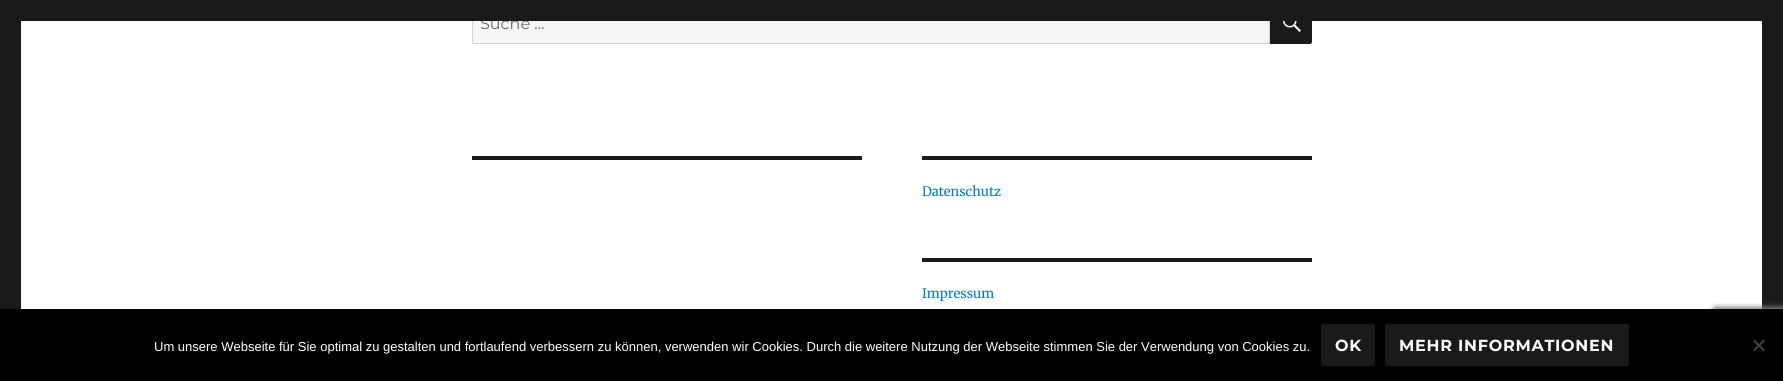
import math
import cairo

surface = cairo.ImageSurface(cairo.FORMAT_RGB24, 1783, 381)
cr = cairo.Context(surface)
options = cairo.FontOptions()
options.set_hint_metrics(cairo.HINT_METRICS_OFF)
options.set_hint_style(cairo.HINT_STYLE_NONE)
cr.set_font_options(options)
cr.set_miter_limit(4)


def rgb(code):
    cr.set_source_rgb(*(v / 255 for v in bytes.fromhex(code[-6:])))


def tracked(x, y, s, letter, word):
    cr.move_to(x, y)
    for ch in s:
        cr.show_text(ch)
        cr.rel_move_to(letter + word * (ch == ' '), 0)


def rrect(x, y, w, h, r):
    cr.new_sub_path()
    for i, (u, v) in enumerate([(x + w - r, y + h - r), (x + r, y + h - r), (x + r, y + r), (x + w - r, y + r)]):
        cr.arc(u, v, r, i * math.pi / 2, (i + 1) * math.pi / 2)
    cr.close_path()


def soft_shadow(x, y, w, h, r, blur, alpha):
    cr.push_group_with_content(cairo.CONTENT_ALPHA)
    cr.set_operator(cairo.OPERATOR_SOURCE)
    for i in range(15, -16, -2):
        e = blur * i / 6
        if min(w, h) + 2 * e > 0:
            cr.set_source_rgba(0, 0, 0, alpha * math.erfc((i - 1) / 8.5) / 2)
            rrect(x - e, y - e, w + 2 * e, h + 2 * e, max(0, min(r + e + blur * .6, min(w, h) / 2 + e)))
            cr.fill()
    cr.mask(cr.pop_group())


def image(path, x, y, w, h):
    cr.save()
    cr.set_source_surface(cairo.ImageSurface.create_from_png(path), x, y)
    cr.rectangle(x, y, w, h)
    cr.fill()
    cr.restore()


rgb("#1a1a1a")
cr.paint()
rgb("#ffffff")
cr.rectangle(21, 21, 1741, 288)
cr.fill()
rgb("#f7f7f7")
cr.new_path()
cr.move_to(474, 2.5)
cr.line_to(1269.5, 2.5)
cr.line_to(1269.5, 43.5)
cr.line_to(474, 43.5)
cr.curve_to(473, 43.5, 472.5, 43, 472.5, 42)
cr.line_to(472.5, 4)
cr.curve_to(472.5, 3, 473, 2.5, 474, 2.5)
cr.close_path()
cr.fill_preserve()
rgb("#d1d1d1")
cr.set_line_width(1)
cr.stroke()
rgb("#1a1a1a")
cr.new_path()
cr.move_to(1270, 2)
cr.line_to(1310, 2)
cr.curve_to(1311, 2, 1312, 3, 1312, 4)
cr.line_to(1312, 42)
cr.curve_to(1312, 43, 1311, 44, 1310, 44)
cr.line_to(1270, 44)
cr.close_path()
cr.fill()
image("img/1.png", 1283, 21, 18, 11)
for x, y, w, h, color in [
    (472, 156, 390, 4, "#1a1a1a"),
    (922, 156, 390, 4, "#1a1a1a"),
    (922, 258, 390, 4, "#1a1a1a"),
]:
    rgb(color)
    cr.rectangle(x, y, w, h)
    cr.fill()
rgb("#808080")
soft_shadow(1713, 307, 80, 60, 2, 2.5, 1)
rgb("#000000")
cr.rectangle(0, 309, 1783, 72)
cr.fill()
rgb("#1a1a1a")
rrect(1321, 324, 54, 42, 2)
cr.fill()
rrect(1385, 324, 244, 42, 2)
cr.fill()
rgb("#404040")
cr.new_path()
cr.move_to(1763.5, 339.5)
cr.line_to(1765, 341)
cr.line_to(1754.5, 351.5)
cr.line_to(1753, 350)
cr.close_path()
cr.fill()
cr.new_path()
cr.move_to(1753, 341)
cr.line_to(1754.5, 339.5)
cr.line_to(1765, 350)
cr.line_to(1763.5, 351.5)
cr.close_path()
cr.fill()
cr.select_font_face("Montserrat")
cr.set_font_size(16)
rgb("#686868")
cr.move_to(480, 29)
cr.show_text("Suche …")
rgb("#1a1a1a")
cr.rectangle(472, 2, 798, 19)
cr.fill()
cr.select_font_face("Merriweather")
cr.set_font_size(13)
rgb("#007acc")
cr.move_to(922, 196)
cr.show_text("Datenschutz")
cr.move_to(922, 298)
cr.show_text("Impressum")
cr.select_font_face("Liberation Sans")
rgb("#ffffff")
cr.move_to(154, 351)
cr.show_text("Um unsere Webseite für Sie optimal zu gestalten und fortlaufend verbessern zu können, verwenden wir Cookies. Durch die weitere Nutzung der Webseite stimmen Sie der Verwendung von Cookies zu.")
cr.select_font_face("Montserrat", cairo.FONT_SLANT_NORMAL, cairo.FONT_WEIGHT_BOLD)
cr.set_font_size(16)
tracked(1335, 351, "OK", 0.75, 0)
tracked(1399, 351, "MEHR INFORMATIONEN", 0.75, 0)
surface.write_to_png("page.png")
